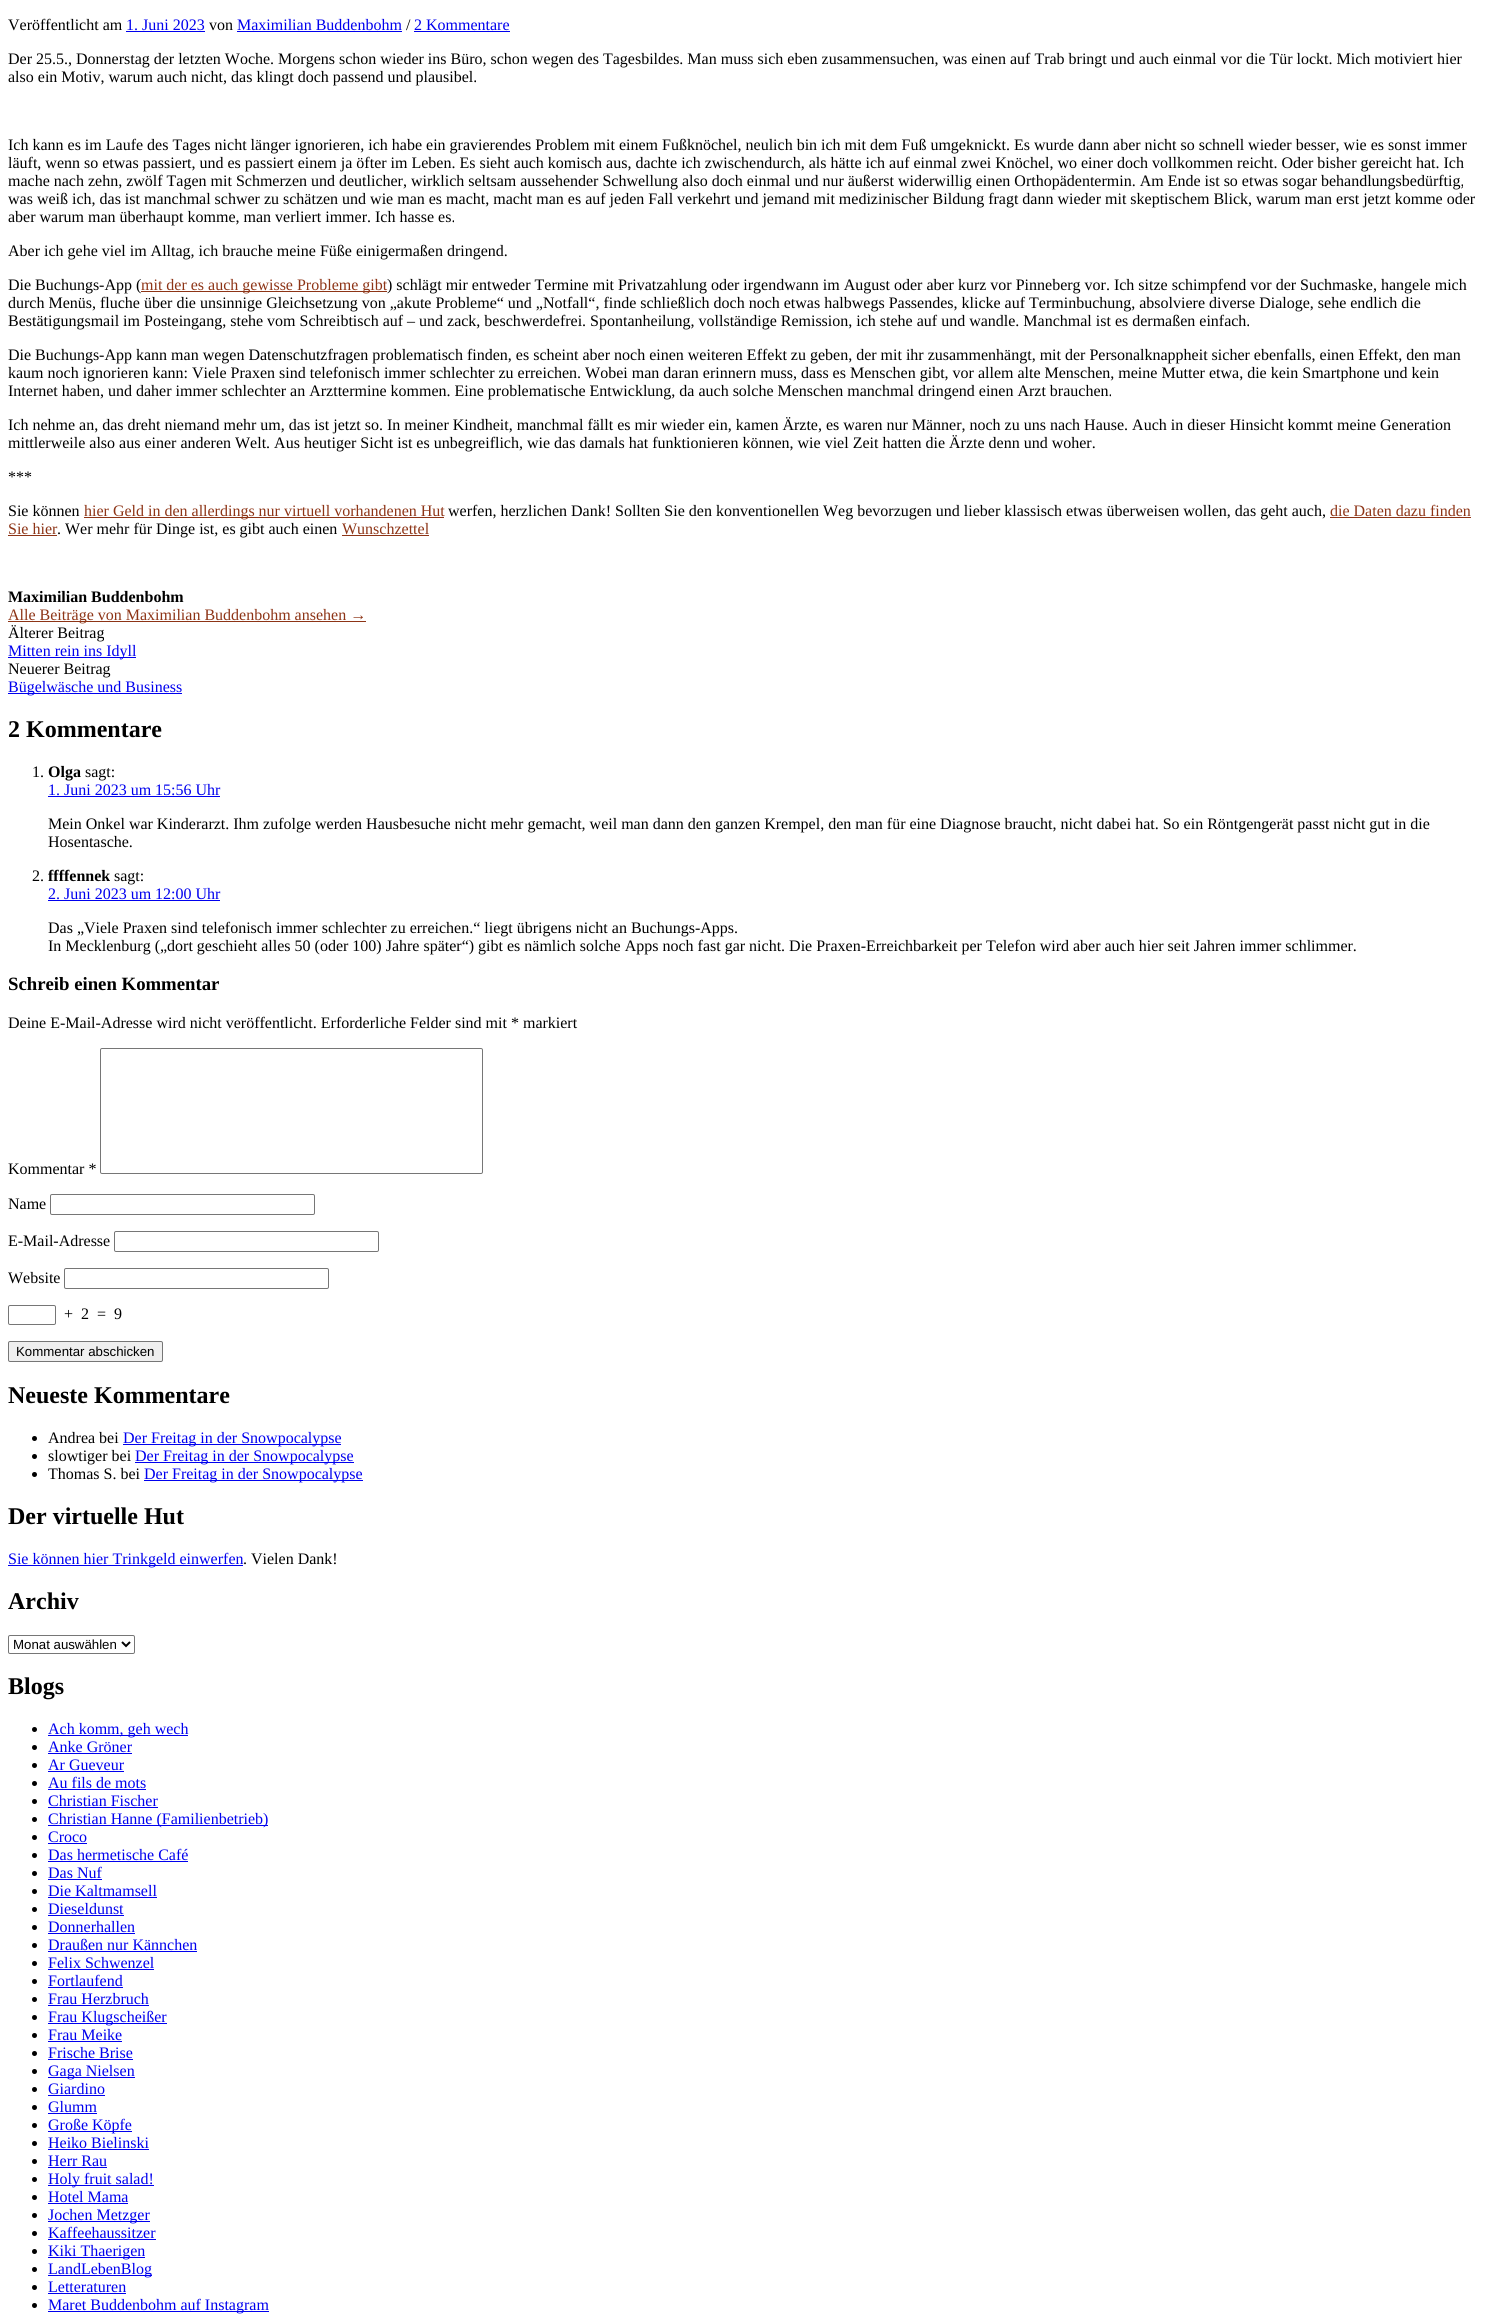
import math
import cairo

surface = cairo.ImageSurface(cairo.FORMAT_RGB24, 1499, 2317)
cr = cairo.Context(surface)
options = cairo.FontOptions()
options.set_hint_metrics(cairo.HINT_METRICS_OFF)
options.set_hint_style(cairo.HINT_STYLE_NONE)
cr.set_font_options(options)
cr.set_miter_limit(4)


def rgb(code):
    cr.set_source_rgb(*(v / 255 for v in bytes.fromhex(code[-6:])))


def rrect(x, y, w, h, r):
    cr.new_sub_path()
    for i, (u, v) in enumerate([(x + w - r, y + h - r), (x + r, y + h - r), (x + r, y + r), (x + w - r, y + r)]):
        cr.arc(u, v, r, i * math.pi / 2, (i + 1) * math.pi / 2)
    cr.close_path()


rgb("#ffffff")
cr.paint()
for x, y, w, h, color in [
    (126, 31, 79, 1, "#0000ee"),
    (237, 31, 165, 1, "#0000ee"),
    (414, 31, 96, 1, "#0000ee"),
    (141, 291, 246, 1, "#8d3416"),
    (84, 517, 360, 1, "#8d3416"),
    (1330, 517, 141, 1, "#8d3416"),
    (8, 535, 49, 1, "#8d3416"),
    (342, 535, 87, 1, "#8d3416"),
    (8, 621, 358, 1, "#8d3416"),
    (8, 657, 128, 1, "#0000ee"),
    (8, 693, 174, 1, "#0000ee"),
    (48, 796, 172, 1, "#0000ee"),
    (48, 900, 172, 1, "#0000ee"),
]:
    rgb(color)
    cr.rectangle(x, y, w, h)
    cr.fill()
rrect(100.5, 1048.5, 382, 125, 1.5)
rgb("#767676")
cr.set_line_width(1)
cr.stroke()
rrect(50.5, 1194.5, 264, 20, 1.5)
cr.stroke()
rrect(114.5, 1231.5, 264, 20, 1.5)
cr.stroke()
rrect(64.5, 1268.5, 264, 20, 1.5)
cr.stroke()
rrect(8.5, 1305.5, 47, 19, 1.5)
cr.stroke()
rgb("#efefef")
rrect(8.5, 1341.5, 154, 20, 1.5)
cr.fill_preserve()
rgb("#767676")
cr.stroke()
rgb("#000000")
cr.arc(34.5, 1438.5, 2.5, 0, 2 * math.pi)
cr.fill()
rgb("#0000ee")
cr.rectangle(123, 1444, 218, 1)
cr.fill()
rgb("#000000")
cr.arc(34.5, 1456.5, 2.5, 0, 2 * math.pi)
cr.fill()
rgb("#0000ee")
cr.rectangle(135, 1462, 219, 1)
cr.fill()
rgb("#000000")
cr.arc(34.5, 1474.5, 2.5, 0, 2 * math.pi)
cr.fill()
rgb("#0000ee")
cr.rectangle(144, 1480, 219, 1)
cr.fill()
cr.rectangle(8, 1565, 235, 1)
cr.fill()
rrect(8.5, 1635.5, 126, 18, 1.5)
rgb("#767676")
cr.stroke()
cr.new_path()
cr.move_to(122, 1642)
cr.line_to(126, 1646)
cr.line_to(130, 1642)
rgb("#000000")
cr.set_line_width(2)
cr.stroke()
cr.arc(34.5, 1729.5, 2.5, 0, 2 * math.pi)
cr.fill()
rgb("#0000ee")
cr.rectangle(48, 1735, 140, 1)
cr.fill()
rgb("#000000")
cr.arc(34.5, 1747.5, 2.5, 0, 2 * math.pi)
cr.fill()
rgb("#0000ee")
cr.rectangle(48, 1753, 84, 1)
cr.fill()
rgb("#000000")
cr.arc(34.5, 1765.5, 2.5, 0, 2 * math.pi)
cr.fill()
rgb("#0000ee")
cr.rectangle(48, 1771, 76, 1)
cr.fill()
rgb("#000000")
cr.arc(34.5, 1783.5, 2.5, 0, 2 * math.pi)
cr.fill()
rgb("#0000ee")
cr.rectangle(48, 1789, 98, 1)
cr.fill()
rgb("#000000")
cr.arc(34.5, 1801.5, 2.5, 0, 2 * math.pi)
cr.fill()
rgb("#0000ee")
cr.rectangle(48, 1807, 110, 1)
cr.fill()
rgb("#000000")
cr.arc(34.5, 1819.5, 2.5, 0, 2 * math.pi)
cr.fill()
rgb("#0000ee")
cr.rectangle(48, 1825, 220, 1)
cr.fill()
rgb("#000000")
cr.arc(34.5, 1837.5, 2.5, 0, 2 * math.pi)
cr.fill()
rgb("#0000ee")
cr.rectangle(48, 1843, 39, 1)
cr.fill()
rgb("#000000")
cr.arc(34.5, 1855.5, 2.5, 0, 2 * math.pi)
cr.fill()
rgb("#0000ee")
cr.rectangle(48, 1861, 140, 1)
cr.fill()
rgb("#000000")
cr.arc(34.5, 1873.5, 2.5, 0, 2 * math.pi)
cr.fill()
rgb("#0000ee")
cr.rectangle(48, 1879, 54, 1)
cr.fill()
rgb("#000000")
cr.arc(34.5, 1891.5, 2.5, 0, 2 * math.pi)
cr.fill()
rgb("#0000ee")
cr.rectangle(48, 1897, 109, 1)
cr.fill()
rgb("#000000")
cr.arc(34.5, 1909.5, 2.5, 0, 2 * math.pi)
cr.fill()
rgb("#0000ee")
cr.rectangle(48, 1915, 76, 1)
cr.fill()
rgb("#000000")
cr.arc(34.5, 1927.5, 2.5, 0, 2 * math.pi)
cr.fill()
rgb("#0000ee")
cr.rectangle(48, 1933, 87, 1)
cr.fill()
rgb("#000000")
cr.arc(34.5, 1945.5, 2.5, 0, 2 * math.pi)
cr.fill()
rgb("#0000ee")
cr.rectangle(48, 1951, 149, 1)
cr.fill()
rgb("#000000")
cr.arc(34.5, 1963.5, 2.5, 0, 2 * math.pi)
cr.fill()
rgb("#0000ee")
cr.rectangle(48, 1969, 106, 1)
cr.fill()
rgb("#000000")
cr.arc(34.5, 1981.5, 2.5, 0, 2 * math.pi)
cr.fill()
rgb("#0000ee")
cr.rectangle(48, 1987, 75, 1)
cr.fill()
rgb("#000000")
cr.arc(34.5, 1999.5, 2.5, 0, 2 * math.pi)
cr.fill()
rgb("#0000ee")
cr.rectangle(48, 2005, 101, 1)
cr.fill()
rgb("#000000")
cr.arc(34.5, 2017.5, 2.5, 0, 2 * math.pi)
cr.fill()
rgb("#0000ee")
cr.rectangle(48, 2023, 119, 1)
cr.fill()
rgb("#000000")
cr.arc(34.5, 2035.5, 2.5, 0, 2 * math.pi)
cr.fill()
rgb("#0000ee")
cr.rectangle(48, 2041, 74, 1)
cr.fill()
rgb("#000000")
cr.arc(34.5, 2053.5, 2.5, 0, 2 * math.pi)
cr.fill()
rgb("#0000ee")
cr.rectangle(48, 2059, 85, 1)
cr.fill()
rgb("#000000")
cr.arc(34.5, 2071.5, 2.5, 0, 2 * math.pi)
cr.fill()
rgb("#0000ee")
cr.rectangle(48, 2077, 87, 1)
cr.fill()
rgb("#000000")
cr.arc(34.5, 2089.5, 2.5, 0, 2 * math.pi)
cr.fill()
rgb("#0000ee")
cr.rectangle(48, 2095, 57, 1)
cr.fill()
rgb("#000000")
cr.arc(34.5, 2107.5, 2.5, 0, 2 * math.pi)
cr.fill()
rgb("#0000ee")
cr.rectangle(48, 2113, 49, 1)
cr.fill()
rgb("#000000")
cr.arc(34.5, 2125.5, 2.5, 0, 2 * math.pi)
cr.fill()
rgb("#0000ee")
cr.rectangle(48, 2131, 84, 1)
cr.fill()
rgb("#000000")
cr.arc(34.5, 2143.5, 2.5, 0, 2 * math.pi)
cr.fill()
rgb("#0000ee")
cr.rectangle(48, 2149, 101, 1)
cr.fill()
rgb("#000000")
cr.arc(34.5, 2161.5, 2.5, 0, 2 * math.pi)
cr.fill()
rgb("#0000ee")
cr.rectangle(48, 2167, 59, 1)
cr.fill()
rgb("#000000")
cr.arc(34.5, 2179.5, 2.5, 0, 2 * math.pi)
cr.fill()
rgb("#0000ee")
cr.rectangle(48, 2185, 106, 1)
cr.fill()
rgb("#000000")
cr.arc(34.5, 2197.5, 2.5, 0, 2 * math.pi)
cr.fill()
rgb("#0000ee")
cr.rectangle(48, 2203, 80, 1)
cr.fill()
rgb("#000000")
cr.arc(34.5, 2215.5, 2.5, 0, 2 * math.pi)
cr.fill()
rgb("#0000ee")
cr.rectangle(48, 2221, 102, 1)
cr.fill()
rgb("#000000")
cr.arc(34.5, 2233.5, 2.5, 0, 2 * math.pi)
cr.fill()
rgb("#0000ee")
cr.rectangle(48, 2239, 108, 1)
cr.fill()
rgb("#000000")
cr.arc(34.5, 2251.5, 2.5, 0, 2 * math.pi)
cr.fill()
rgb("#0000ee")
cr.rectangle(48, 2257, 97, 1)
cr.fill()
rgb("#000000")
cr.arc(34.5, 2269.5, 2.5, 0, 2 * math.pi)
cr.fill()
rgb("#0000ee")
cr.rectangle(48, 2275, 104, 1)
cr.fill()
rgb("#000000")
cr.arc(34.5, 2287.5, 2.5, 0, 2 * math.pi)
cr.fill()
rgb("#0000ee")
cr.rectangle(48, 2293, 78, 1)
cr.fill()
rgb("#000000")
cr.arc(34.5, 2305.5, 2.5, 0, 2 * math.pi)
cr.fill()
rgb("#0000ee")
cr.rectangle(48, 2311, 221, 1)
cr.fill()
cr.select_font_face("Liberation Serif")
cr.set_font_size(16)
rgb("#000000")
cr.move_to(8, 30)
cr.show_text("Veröffentlicht am")
rgb("#0000ee")
cr.move_to(126, 30)
cr.show_text("1. Juni 2023")
rgb("#000000")
cr.move_to(209, 30)
cr.show_text("von")
rgb("#0000ee")
cr.move_to(237, 30)
cr.show_text("Maximilian Buddenbohm")
rgb("#000000")
cr.move_to(406, 30)
cr.show_text("/")
rgb("#0000ee")
cr.move_to(414, 30)
cr.show_text("2 Kommentare")
rgb("#000000")
for x, y, s in [
    (8, 64, "Der 25.5., Donnerstag der letzten Woche. Morgens schon wieder ins Büro, schon wegen des Tagesbildes. Man muss sich eben zusammensuchen, was einen auf Trab bringt und auch einmal vor die Tür lockt. Mich motiviert hier"),
    (8, 82, "also ein Motiv, warum auch nicht, das klingt doch passend und plausibel."),
    (8, 150, "Ich kann es im Laufe des Tages nicht länger ignorieren, ich habe ein gravierendes Problem mit einem Fußknöchel, neulich bin ich mit dem Fuß umgeknickt. Es wurde dann aber nicht so schnell wieder besser, wie es sonst immer"),
    (8, 168, "läuft, wenn so etwas passiert, und es passiert einem ja öfter im Leben. Es sieht auch komisch aus, dachte ich zwischendurch, als hätte ich auf einmal zwei Knöchel, wo einer doch vollkommen reicht. Oder bisher gereicht hat. Ich"),
    (8, 186, "mache nach zehn, zwölf Tagen mit Schmerzen und deutlicher, wirklich seltsam aussehender Schwellung also doch einmal und nur äußerst widerwillig einen Orthopädentermin. Am Ende ist so etwas sogar behandlungsbedürftig,"),
    (8, 204, "was weiß ich, das ist manchmal schwer zu schätzen und wie man es macht, macht man es auf jeden Fall verkehrt und jemand mit medizinischer Bildung fragt dann wieder mit skeptischem Blick, warum man erst jetzt komme oder"),
    (8, 222, "aber warum man überhaupt komme, man verliert immer. Ich hasse es."),
    (8, 256, "Aber ich gehe viel im Alltag, ich brauche meine Füße einigermaßen dringend."),
    (8, 290, "Die Buchungs-App ("),
]:
    cr.move_to(x, y)
    cr.show_text(s)
rgb("#8d3416")
cr.move_to(141, 290)
cr.show_text("mit der es auch gewisse Probleme gibt")
rgb("#000000")
for x, y, s in [
    (387, 290, ") schlägt mir entweder Termine mit Privatzahlung oder irgendwann im August oder aber kurz vor Pinneberg vor. Ich sitze schimpfend vor der Suchmaske, hangele mich"),
    (8, 308, "durch Menüs, fluche über die unsinnige Gleichsetzung von „akute Probleme“ und „Notfall“, finde schließlich doch noch etwas halbwegs Passendes, klicke auf Terminbuchung, absolviere diverse Dialoge, sehe endlich die"),
    (8, 326, "Bestätigungsmail im Posteingang, stehe vom Schreibtisch auf – und zack, beschwerdefrei. Spontanheilung, vollständige Remission, ich stehe auf und wandle. Manchmal ist es dermaßen einfach."),
    (8, 360, "Die Buchungs-App kann man wegen Datenschutzfragen problematisch finden, es scheint aber noch einen weiteren Effekt zu geben, der mit ihr zusammenhängt, mit der Personalknappheit sicher ebenfalls, einen Effekt, den man"),
    (8, 378, "kaum noch ignorieren kann: Viele Praxen sind telefonisch immer schlechter zu erreichen. Wobei man daran erinnern muss, dass es Menschen gibt, vor allem alte Menschen, meine Mutter etwa, die kein Smartphone und kein"),
    (8, 396, "Internet haben, und daher immer schlechter an Arzttermine kommen. Eine problematische Entwicklung, da auch solche Menschen manchmal dringend einen Arzt brauchen."),
    (8, 430, "Ich nehme an, das dreht niemand mehr um, das ist jetzt so. In meiner Kindheit, manchmal fällt es mir wieder ein, kamen Ärzte, es waren nur Männer, noch zu uns nach Hause. Auch in dieser Hinsicht kommt meine Generation"),
    (8, 448, "mittlerweile also aus einer anderen Welt. Aus heutiger Sicht ist es unbegreiflich, wie das damals hat funktionieren können, wie viel Zeit hatten die Ärzte denn und woher."),
    (8, 482, "***"),
    (8, 516, "Sie können"),
]:
    cr.move_to(x, y)
    cr.show_text(s)
rgb("#8d3416")
cr.move_to(84, 516)
cr.show_text("hier Geld in den allerdings nur virtuell vorhandenen Hut")
rgb("#000000")
cr.move_to(448, 516)
cr.show_text("werfen, herzlichen Dank! Sollten Sie den konventionellen Weg bevorzugen und lieber klassisch etwas überweisen wollen, das geht auch,")
rgb("#8d3416")
cr.move_to(1330, 516)
cr.show_text("die Daten dazu finden")
cr.move_to(8, 534)
cr.show_text("Sie hier")
rgb("#000000")
cr.move_to(57, 534)
cr.show_text(". Wer mehr für Dinge ist, es gibt auch einen")
rgb("#8d3416")
cr.move_to(342, 534)
cr.show_text("Wunschzettel")
cr.select_font_face("Liberation Serif", cairo.FONT_SLANT_NORMAL, cairo.FONT_WEIGHT_BOLD)
rgb("#000000")
cr.move_to(8, 602)
cr.show_text("Maximilian Buddenbohm")
cr.select_font_face("Liberation Serif")
rgb("#8d3416")
cr.move_to(8, 620)
cr.show_text("Alle Beiträge von Maximilian Buddenbohm ansehen →")
rgb("#000000")
cr.move_to(8, 638)
cr.show_text("Älterer Beitrag")
rgb("#0000ee")
cr.move_to(8, 656)
cr.show_text("Mitten rein ins Idyll")
rgb("#000000")
cr.move_to(8, 674)
cr.show_text("Neuerer Beitrag")
rgb("#0000ee")
cr.move_to(8, 692)
cr.show_text("Bügelwäsche und Business")
cr.select_font_face("Liberation Serif", cairo.FONT_SLANT_NORMAL, cairo.FONT_WEIGHT_BOLD)
cr.set_font_size(24)
rgb("#000000")
cr.move_to(8, 737)
cr.show_text("2 Kommentare")
cr.select_font_face("Liberation Serif")
cr.set_font_size(16)
cr.move_to(32, 777)
cr.show_text("1.")
cr.select_font_face("Liberation Serif", cairo.FONT_SLANT_NORMAL, cairo.FONT_WEIGHT_BOLD)
cr.move_to(48, 777)
cr.show_text("Olga")
cr.select_font_face("Liberation Serif")
cr.move_to(85, 777)
cr.show_text("sagt:")
rgb("#0000ee")
cr.move_to(48, 795)
cr.show_text("1. Juni 2023 um 15:56 Uhr")
rgb("#000000")
for x, y, s in [
    (48, 829, "Mein Onkel war Kinderarzt. Ihm zufolge werden Hausbesuche nicht mehr gemacht, weil man dann den ganzen Krempel, den man für eine Diagnose braucht, nicht dabei hat. So ein Röntgengerät passt nicht gut in die"),
    (48, 847, "Hosentasche."),
    (32, 881, "2."),
]:
    cr.move_to(x, y)
    cr.show_text(s)
cr.select_font_face("Liberation Serif", cairo.FONT_SLANT_NORMAL, cairo.FONT_WEIGHT_BOLD)
cr.move_to(48, 881)
cr.show_text("ffffennek")
cr.select_font_face("Liberation Serif")
cr.move_to(114, 881)
cr.show_text("sagt:")
rgb("#0000ee")
cr.move_to(48, 899)
cr.show_text("2. Juni 2023 um 12:00 Uhr")
rgb("#000000")
cr.move_to(48, 933)
cr.show_text("Das „Viele Praxen sind telefonisch immer schlechter zu erreichen.“ liegt übrigens nicht an Buchungs-Apps.")
cr.move_to(48, 951)
cr.show_text("In Mecklenburg („dort geschieht alles 50 (oder 100) Jahre später“) gibt es nämlich solche Apps noch fast gar nicht. Die Praxen-Erreichbarkeit per Telefon wird aber auch hier seit Jahren immer schlimmer.")
cr.select_font_face("Liberation Serif", cairo.FONT_SLANT_NORMAL, cairo.FONT_WEIGHT_BOLD)
cr.set_font_size(18.75)
cr.move_to(8, 990)
cr.show_text("Schreib einen Kommentar")
cr.select_font_face("Liberation Serif")
cr.set_font_size(16)
for x, y, s in [
    (8, 1028, "Deine E-Mail-Adresse wird nicht veröffentlicht. Erforderliche Felder sind mit * markiert"),
    (8, 1174, "Kommentar *"),
    (8, 1209, "Name"),
    (8, 1246, "E-Mail-Adresse"),
    (8, 1283, "Website"),
    (64, 1319, "+"),
    (81, 1319, "2"),
    (97, 1319, "="),
    (114, 1319, "9"),
]:
    cr.move_to(x, y)
    cr.show_text(s)
cr.select_font_face("Liberation Sans")
cr.set_font_size(13.25)
cr.move_to(16, 1356)
cr.show_text("Kommentar abschicken")
cr.select_font_face("Liberation Serif", cairo.FONT_SLANT_NORMAL, cairo.FONT_WEIGHT_BOLD)
cr.set_font_size(24)
cr.move_to(8, 1403)
cr.show_text("Neueste Kommentare")
cr.select_font_face("Liberation Serif")
cr.set_font_size(16)
cr.move_to(48, 1443)
cr.show_text("Andrea bei")
rgb("#0000ee")
cr.move_to(123, 1443)
cr.show_text("Der Freitag in der Snowpocalypse")
rgb("#000000")
cr.move_to(48, 1461)
cr.show_text("slowtiger bei")
rgb("#0000ee")
cr.move_to(135, 1461)
cr.show_text("Der Freitag in der Snowpocalypse")
rgb("#000000")
cr.move_to(48, 1479)
cr.show_text("Thomas S. bei")
rgb("#0000ee")
cr.move_to(144, 1479)
cr.show_text("Der Freitag in der Snowpocalypse")
cr.select_font_face("Liberation Serif", cairo.FONT_SLANT_NORMAL, cairo.FONT_WEIGHT_BOLD)
cr.set_font_size(24)
rgb("#000000")
cr.move_to(8, 1524)
cr.show_text("Der virtuelle Hut")
cr.select_font_face("Liberation Serif")
cr.set_font_size(16)
rgb("#0000ee")
cr.move_to(8, 1564)
cr.show_text("Sie können hier Trinkgeld einwerfen")
rgb("#000000")
cr.move_to(243, 1564)
cr.show_text(". Vielen Dank!")
cr.select_font_face("Liberation Serif", cairo.FONT_SLANT_NORMAL, cairo.FONT_WEIGHT_BOLD)
cr.set_font_size(24)
cr.move_to(8, 1609)
cr.show_text("Archiv")
cr.select_font_face("Liberation Sans")
cr.set_font_size(13.25)
cr.move_to(13, 1649)
cr.show_text("Monat auswählen")
cr.select_font_face("Liberation Serif", cairo.FONT_SLANT_NORMAL, cairo.FONT_WEIGHT_BOLD)
cr.set_font_size(24)
cr.move_to(8, 1694)
cr.show_text("Blogs")
cr.select_font_face("Liberation Serif")
cr.set_font_size(16)
rgb("#0000ee")
for x, y, s in [
    (48, 1734, "Ach komm, geh wech"),
    (48, 1752, "Anke Gröner"),
    (48, 1770, "Ar Gueveur"),
    (48, 1788, "Au fils de mots"),
    (48, 1806, "Christian Fischer"),
    (48, 1824, "Christian Hanne (Familienbetrieb)"),
    (48, 1842, "Croco"),
    (48, 1860, "Das hermetische Café"),
    (48, 1878, "Das Nuf"),
    (48, 1896, "Die Kaltmamsell"),
    (48, 1914, "Dieseldunst"),
    (48, 1932, "Donnerhallen"),
    (48, 1950, "Draußen nur Kännchen"),
    (48, 1968, "Felix Schwenzel"),
    (48, 1986, "Fortlaufend"),
    (48, 2004, "Frau Herzbruch"),
    (48, 2022, "Frau Klugscheißer"),
    (48, 2040, "Frau Meike"),
    (48, 2058, "Frische Brise"),
    (48, 2076, "Gaga Nielsen"),
    (48, 2094, "Giardino"),
    (48, 2112, "Glumm"),
    (48, 2130, "Große Köpfe"),
    (48, 2148, "Heiko Bielinski"),
    (48, 2166, "Herr Rau"),
    (48, 2184, "Holy fruit salad!"),
    (48, 2202, "Hotel Mama"),
    (48, 2220, "Jochen Metzger"),
    (48, 2238, "Kaffeehaussitzer"),
    (48, 2256, "Kiki Thaerigen"),
    (48, 2274, "LandLebenBlog"),
    (48, 2292, "Letteraturen"),
    (48, 2310, "Maret Buddenbohm auf Instagram"),
]:
    cr.move_to(x, y)
    cr.show_text(s)
surface.write_to_png("page.png")
